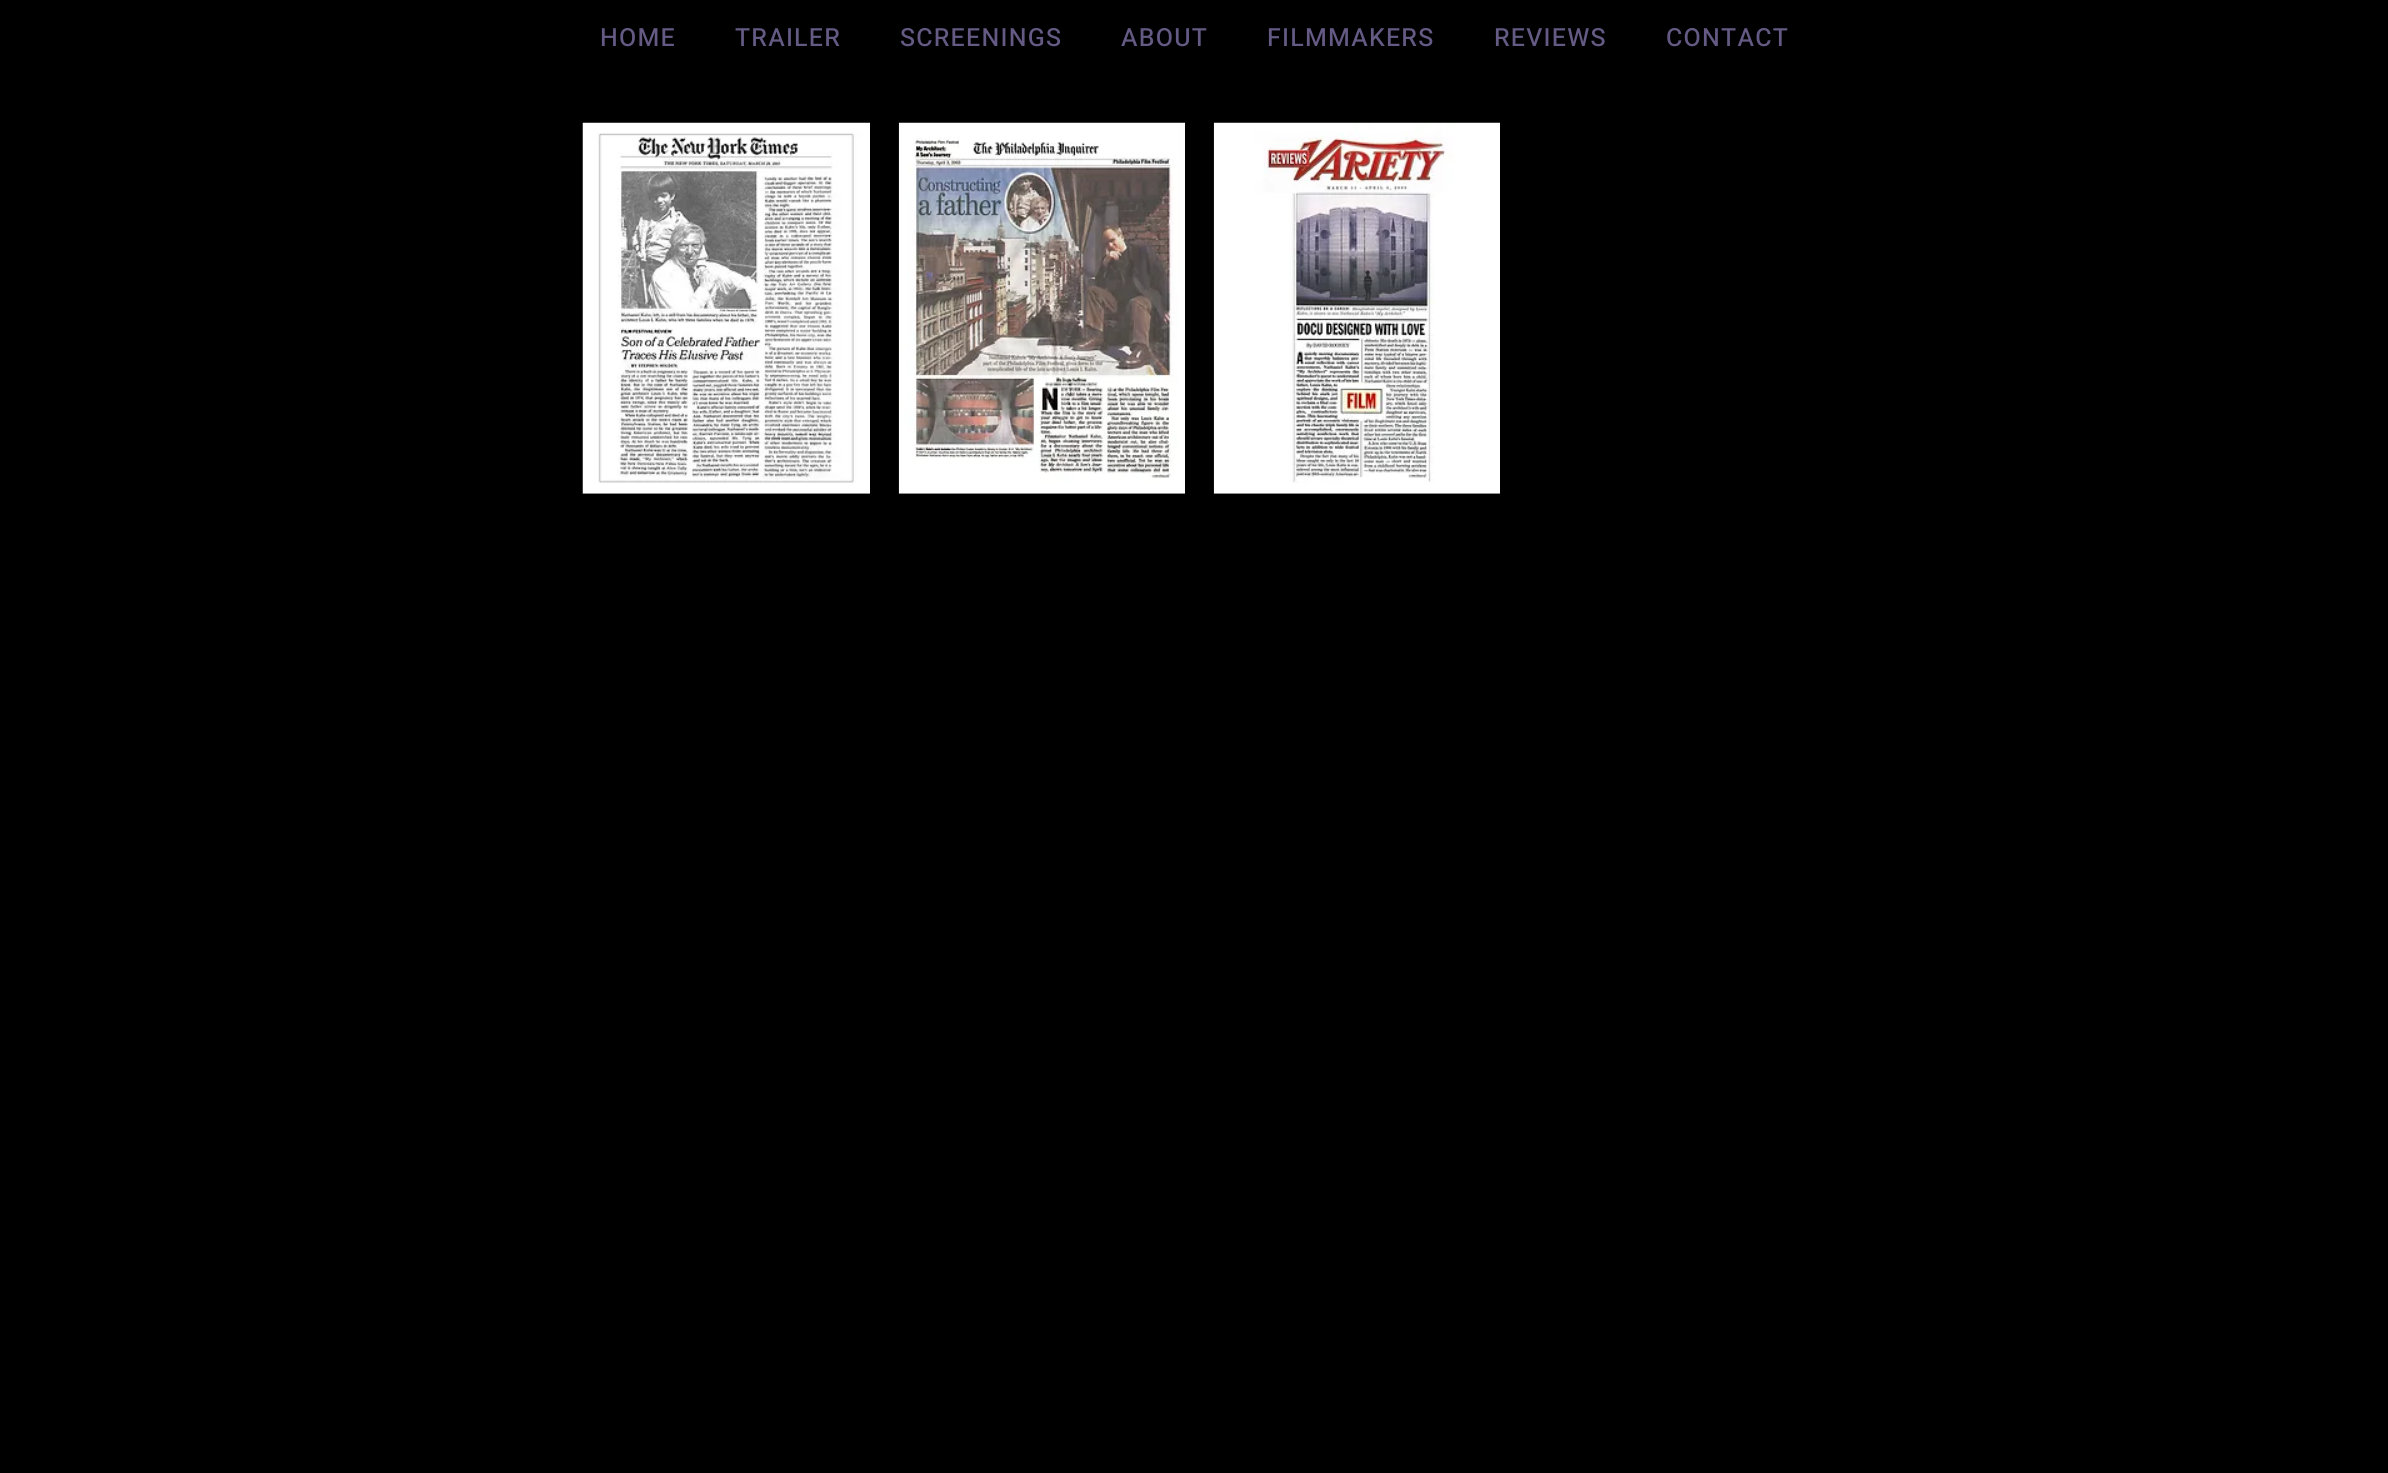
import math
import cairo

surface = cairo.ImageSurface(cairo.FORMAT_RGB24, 2388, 1473)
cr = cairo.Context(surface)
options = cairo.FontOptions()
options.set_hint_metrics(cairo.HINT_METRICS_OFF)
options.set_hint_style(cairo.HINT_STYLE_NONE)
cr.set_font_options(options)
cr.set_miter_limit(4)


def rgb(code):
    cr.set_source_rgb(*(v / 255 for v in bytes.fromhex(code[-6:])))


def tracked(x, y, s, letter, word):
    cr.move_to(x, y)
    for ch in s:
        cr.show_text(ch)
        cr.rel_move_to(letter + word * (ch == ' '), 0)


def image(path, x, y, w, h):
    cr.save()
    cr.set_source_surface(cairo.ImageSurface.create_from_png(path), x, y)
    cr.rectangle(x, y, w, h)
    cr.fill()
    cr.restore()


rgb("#000000")
cr.paint()
image("img/1.png", 582, 122, 288, 372)
image("img/2.png", 898, 122, 287, 372)
image("img/3.png", 1213, 122, 287, 372)
cr.select_font_face("Heebo Medium")
cr.set_font_size(25)
rgb("#645a84")
for x, y, s in [
    (600, 46, "HOME"),
    (735, 46, "TRAILER"),
    (900, 46, "SCREENINGS"),
    (1121, 46, "ABOUT"),
    (1267, 46, "FILMMAKERS"),
    (1494, 46, "REVIEWS"),
    (1666, 46, "CONTACT"),
]:
    tracked(x, y, s, 1.25, 0)
surface.write_to_png("page.png")
